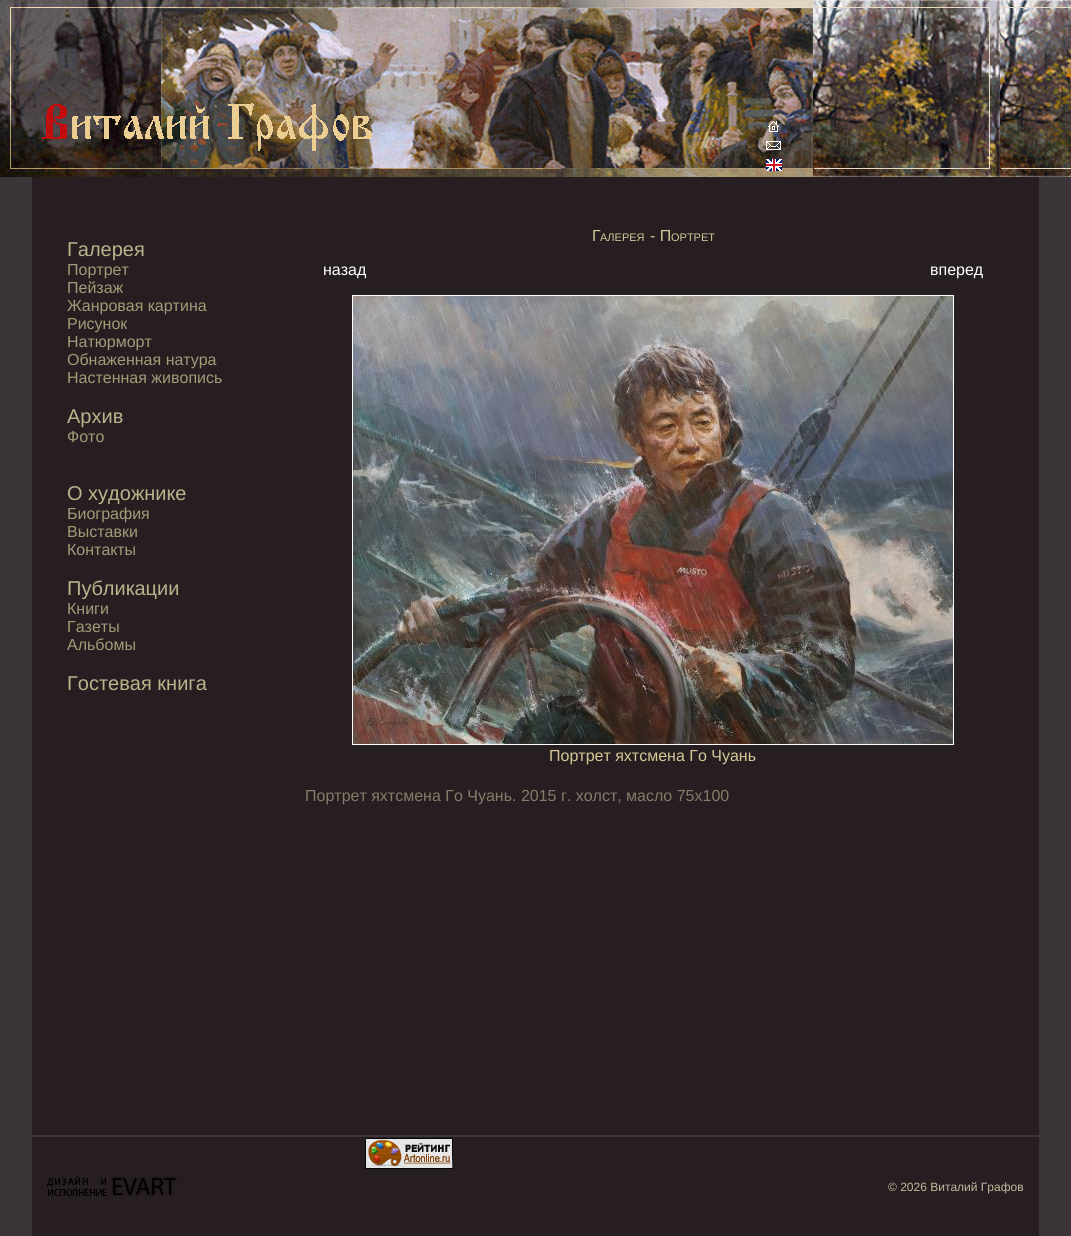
import math
import cairo

surface = cairo.ImageSurface(cairo.FORMAT_RGB24, 1071, 1236)
cr = cairo.Context(surface)
options = cairo.FontOptions()
options.set_hint_metrics(cairo.HINT_METRICS_OFF)
options.set_hint_style(cairo.HINT_STYLE_NONE)
cr.set_font_options(options)
cr.set_miter_limit(4)


def rgb(code):
    cr.set_source_rgb(*(v / 255 for v in bytes.fromhex(code[-6:])))


def image(path, x, y, w, h):
    cr.save()
    cr.set_source_surface(cairo.ImageSurface.create_from_png(path), x, y)
    cr.rectangle(x, y, w, h)
    cr.fill()
    cr.restore()


rgb("#3b3438")
cr.paint()
image("img/1.png", 0, 0, 813, 177)
image("img/2.png", 768, 121, 11, 11)
image("img/3.png", 766, 141, 15, 9)
image("img/4.png", 766, 159, 16, 12)
image("img/5.png", 813, 0, 258, 177)
rgb("#271e21")
cr.rectangle(32, 177, 1007, 958)
cr.fill()
cr.rectangle(352.5, 295.5, 601, 449)
rgb("#ffffff")
cr.set_line_width(1)
cr.stroke()
image("img/6.png", 353, 296, 600, 448)
rgb("#271e21")
cr.rectangle(32, 1137, 1007, 99)
cr.fill()
image("img/7.png", 365, 1138, 88, 31)
image("img/8.png", 47, 1176, 130, 21)
cr.select_font_face("Liberation Sans")
cr.set_font_size(20)
rgb("#b9b48c")
cr.move_to(67, 256)
cr.show_text("Галерея")
cr.set_font_size(16)
rgb("#a09c77")
for x, y, s in [
    (67, 275, "Портрет"),
    (67, 293, "Пейзаж"),
    (67, 311, "Жанровая картина"),
    (67, 329, "Рисунок"),
    (67, 347, "Натюрморт"),
    (67, 365, "Обнаженная натура"),
    (67, 383, "Настенная живопись"),
]:
    cr.move_to(x, y)
    cr.show_text(s)
cr.set_font_size(20)
rgb("#b9b48c")
cr.move_to(67, 423)
cr.show_text("Архив")
cr.set_font_size(16)
rgb("#a09c77")
cr.move_to(67, 442)
cr.show_text("Фото")
cr.set_font_size(20)
rgb("#b9b48c")
cr.move_to(67, 500)
cr.show_text("О художнике")
cr.set_font_size(16)
rgb("#a09c77")
for x, y, s in [
    (67, 519, "Биография"),
    (67, 537, "Выставки"),
    (67, 555, "Контакты"),
]:
    cr.move_to(x, y)
    cr.show_text(s)
cr.set_font_size(20)
rgb("#b9b48c")
cr.move_to(67, 595)
cr.show_text("Публикации")
cr.set_font_size(16)
rgb("#a09c77")
for x, y, s in [
    (67, 614, "Книги"),
    (67, 632, "Газеты"),
    (67, 650, "Альбомы"),
]:
    cr.move_to(x, y)
    cr.show_text(s)
cr.set_font_size(20)
rgb("#b9b48c")
cr.move_to(67, 690)
cr.show_text("Гостевая книга")
cr.set_font_size(16)
rgb("#d3c897")
cr.move_to(592, 241)
cr.show_text("Г")
cr.set_font_size(11)
cr.move_to(600, 241)
cr.show_text("АЛЕРЕЯ")
cr.set_font_size(16)
cr.move_to(650, 241)
cr.show_text("- П")
cr.set_font_size(11)
cr.move_to(671, 241)
cr.show_text("ОРТРЕТ")
cr.set_font_size(16)
rgb("#ffffff")
cr.move_to(323, 275)
cr.show_text("назад")
cr.move_to(930, 275)
cr.show_text("вперед")
rgb("#d3c897")
cr.move_to(549, 761)
cr.show_text("Портрет яхтсмена Го Чуань")
rgb("#817e69")
cr.move_to(305, 801)
cr.show_text("Портрет яхтсмена Го Чуань. 2015 г. холст, масло 75х100")
cr.set_font_size(12)
rgb("#bebd9d")
cr.move_to(888, 1191)
cr.show_text("© 2026 Виталий Графов")
surface.write_to_png("page.png")
